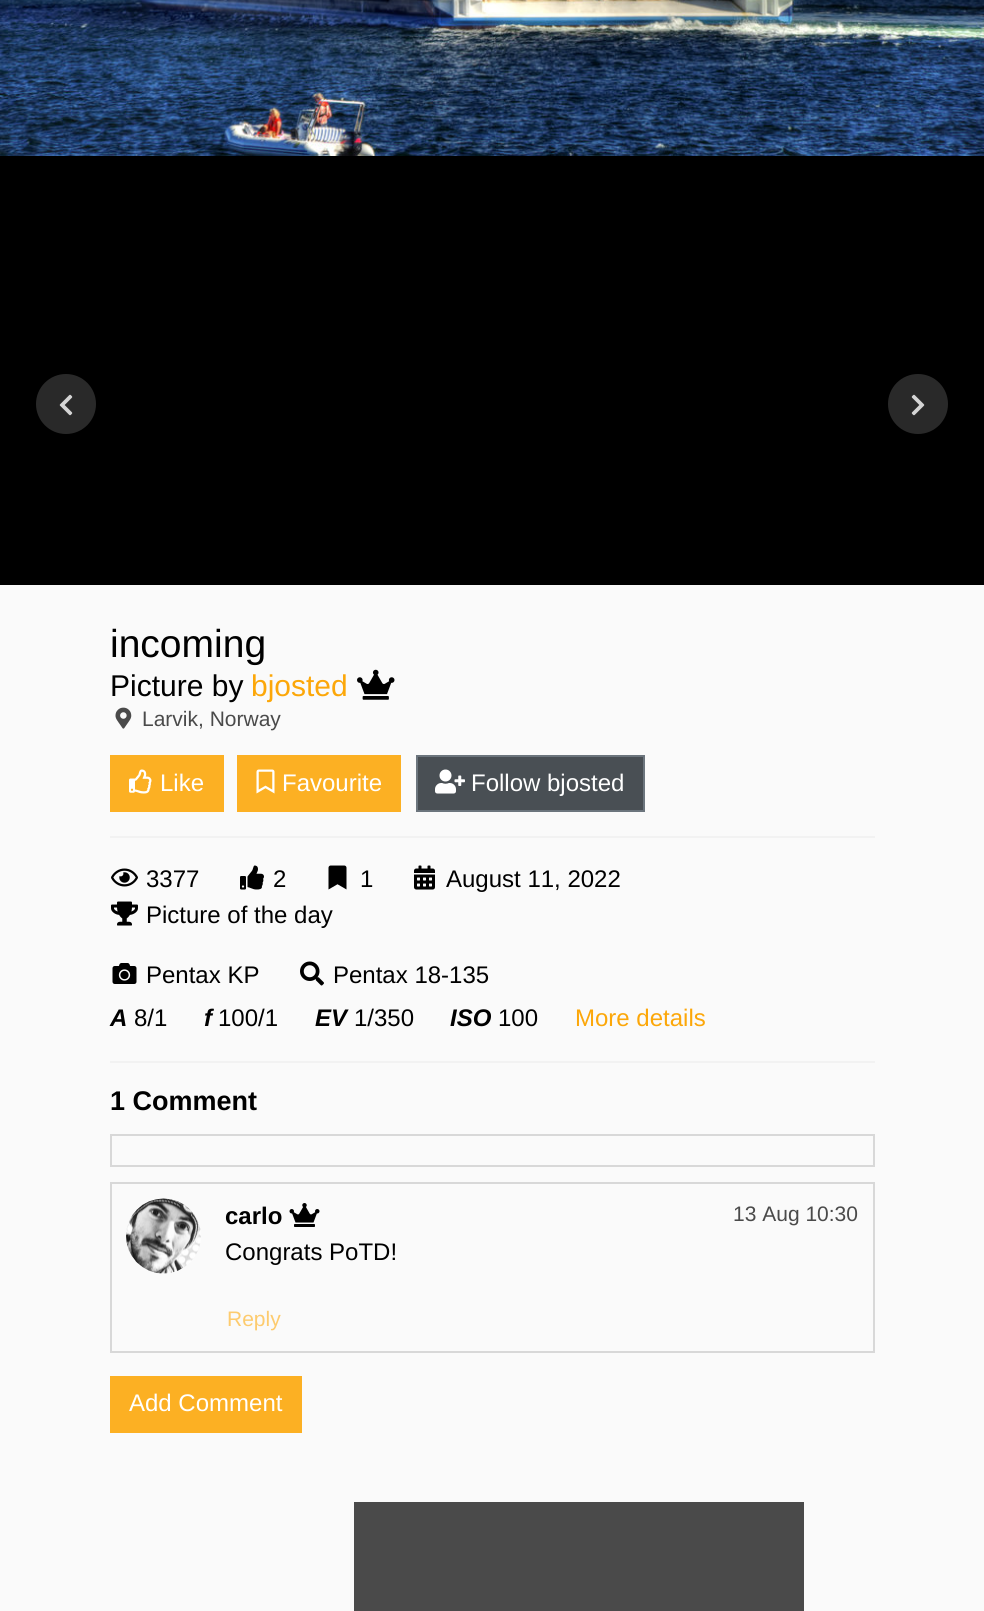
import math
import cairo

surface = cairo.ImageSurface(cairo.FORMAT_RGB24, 984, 1611)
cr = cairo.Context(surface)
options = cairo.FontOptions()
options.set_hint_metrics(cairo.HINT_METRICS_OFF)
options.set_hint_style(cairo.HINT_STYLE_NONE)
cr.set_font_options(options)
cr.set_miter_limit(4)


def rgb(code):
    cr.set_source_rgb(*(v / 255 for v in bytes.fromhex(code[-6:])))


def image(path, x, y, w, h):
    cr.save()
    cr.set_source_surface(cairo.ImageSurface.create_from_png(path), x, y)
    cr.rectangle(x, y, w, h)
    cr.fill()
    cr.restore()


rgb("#fafafa")
cr.paint()
rgb("#000000")
cr.rectangle(0, 156, 984, 429)
cr.fill()
image("img/1.png", 0, 0, 984, 156)
rgb("#292929")
cr.arc(66, 404, 30, 0, 2 * math.pi)
cr.fill()
image("img/2.png", 59, 394, 14, 22)
cr.arc(918, 404, 30, 0, 2 * math.pi)
cr.fill()
image("img/3.png", 911, 394, 14, 22)
image("img/4.png", 357, 669, 38, 31)
image("img/5.png", 115, 707, 17, 22)
rgb("#fcb023")
cr.rectangle(110, 755, 114, 57)
cr.fill()
image("img/6.png", 129, 769, 23, 25)
cr.rectangle(237, 755, 164, 57)
cr.fill()
image("img/7.png", 256, 769, 19, 25)
rgb("#494f54")
cr.rectangle(417, 756, 227, 55)
cr.fill_preserve()
rgb("#6c757d")
cr.stroke()
image("img/8.png", 435, 769, 30, 25)
rgb("#f2f2f2")
cr.rectangle(110, 836, 765, 2)
cr.fill()
image("img/9.png", 111, 868, 27, 19)
image("img/10.png", 240, 865, 24, 25)
image("img/11.png", 328, 865, 19, 25)
image("img/12.png", 414, 865, 21, 25)
image("img/13.png", 111, 901, 27, 25)
image("img/14.png", 112, 963, 25, 21)
image("img/15.png", 300, 961, 24, 25)
cr.rectangle(110, 1061, 765, 2)
cr.fill()
cr.rectangle(111, 1135, 763, 31)
rgb("#d8d8d8")
cr.stroke()
cr.rectangle(111, 1183, 763, 169)
cr.stroke()
image("img/16.png", 126, 1198, 75, 76)
image("img/17.png", 289, 1203, 31, 24)
rgb("#fcb023")
cr.rectangle(110, 1376, 192, 57)
cr.fill()
rgb("#4a4a4a")
cr.rectangle(354, 1502, 450, 109)
cr.fill()
cr.select_font_face("Liberation Sans")
cr.set_font_size(39)
rgb("#000000")
cr.move_to(110, 657)
cr.show_text("incoming")
cr.set_font_size(30)
cr.move_to(110, 696)
cr.show_text("Picture by")
rgb("#fca709")
cr.move_to(251, 696)
cr.show_text("bjosted")
cr.set_font_size(21)
rgb("#4a4a4a")
cr.move_to(142, 726)
cr.show_text("Larvik, Norway")
cr.set_font_size(24)
rgb("#ffffff")
for x, y, s in [
    (160, 791, "Like"),
    (282, 791, "Favourite"),
    (471, 791, "Follow bjosted"),
]:
    cr.move_to(x, y)
    cr.show_text(s)
rgb("#000000")
for x, y, s in [
    (146, 887, "3377"),
    (273, 887, "2"),
    (360, 887, "1"),
    (446, 887, "August 11, 2022"),
    (146, 923, "Picture of the day"),
    (146, 983, "Pentax KP"),
    (333, 983, "Pentax 18-135"),
]:
    cr.move_to(x, y)
    cr.show_text(s)
cr.select_font_face("Liberation Sans", cairo.FONT_SLANT_ITALIC, cairo.FONT_WEIGHT_BOLD)
cr.move_to(110, 1026)
cr.show_text("A")
cr.select_font_face("Liberation Sans")
cr.move_to(134, 1026)
cr.show_text("8/1")
cr.select_font_face("Liberation Sans", cairo.FONT_SLANT_ITALIC, cairo.FONT_WEIGHT_BOLD)
cr.move_to(204, 1026)
cr.show_text("f")
cr.select_font_face("Liberation Sans")
cr.move_to(218, 1026)
cr.show_text("100/1")
cr.select_font_face("Liberation Sans", cairo.FONT_SLANT_ITALIC, cairo.FONT_WEIGHT_BOLD)
cr.move_to(315, 1026)
cr.show_text("EV")
cr.select_font_face("Liberation Sans")
cr.move_to(354, 1026)
cr.show_text("1/350")
cr.select_font_face("Liberation Sans", cairo.FONT_SLANT_ITALIC, cairo.FONT_WEIGHT_BOLD)
cr.move_to(450, 1026)
cr.show_text("ISO")
cr.select_font_face("Liberation Sans")
cr.move_to(498, 1026)
cr.show_text("100")
rgb("#fca709")
cr.move_to(575, 1026)
cr.show_text("More details")
cr.select_font_face("Liberation Sans", cairo.FONT_SLANT_NORMAL, cairo.FONT_WEIGHT_BOLD)
cr.set_font_size(27)
rgb("#000000")
cr.move_to(110, 1110)
cr.show_text("1 Comment")
cr.set_font_size(24)
cr.move_to(225, 1224)
cr.show_text("carlo")
cr.select_font_face("Liberation Sans")
cr.set_font_size(21)
rgb("#4a4a4a")
cr.move_to(733, 1221)
cr.show_text("13 Aug 10:30")
cr.set_font_size(24)
rgb("#000000")
cr.move_to(225, 1260)
cr.show_text("Congrats PoTD!")
cr.set_font_size(21)
rgb("#fdcb6e")
cr.move_to(227, 1326)
cr.show_text("Reply")
cr.set_font_size(24)
rgb("#ffffff")
cr.move_to(129, 1411)
cr.show_text("Add Comment")
surface.write_to_png("page.png")
